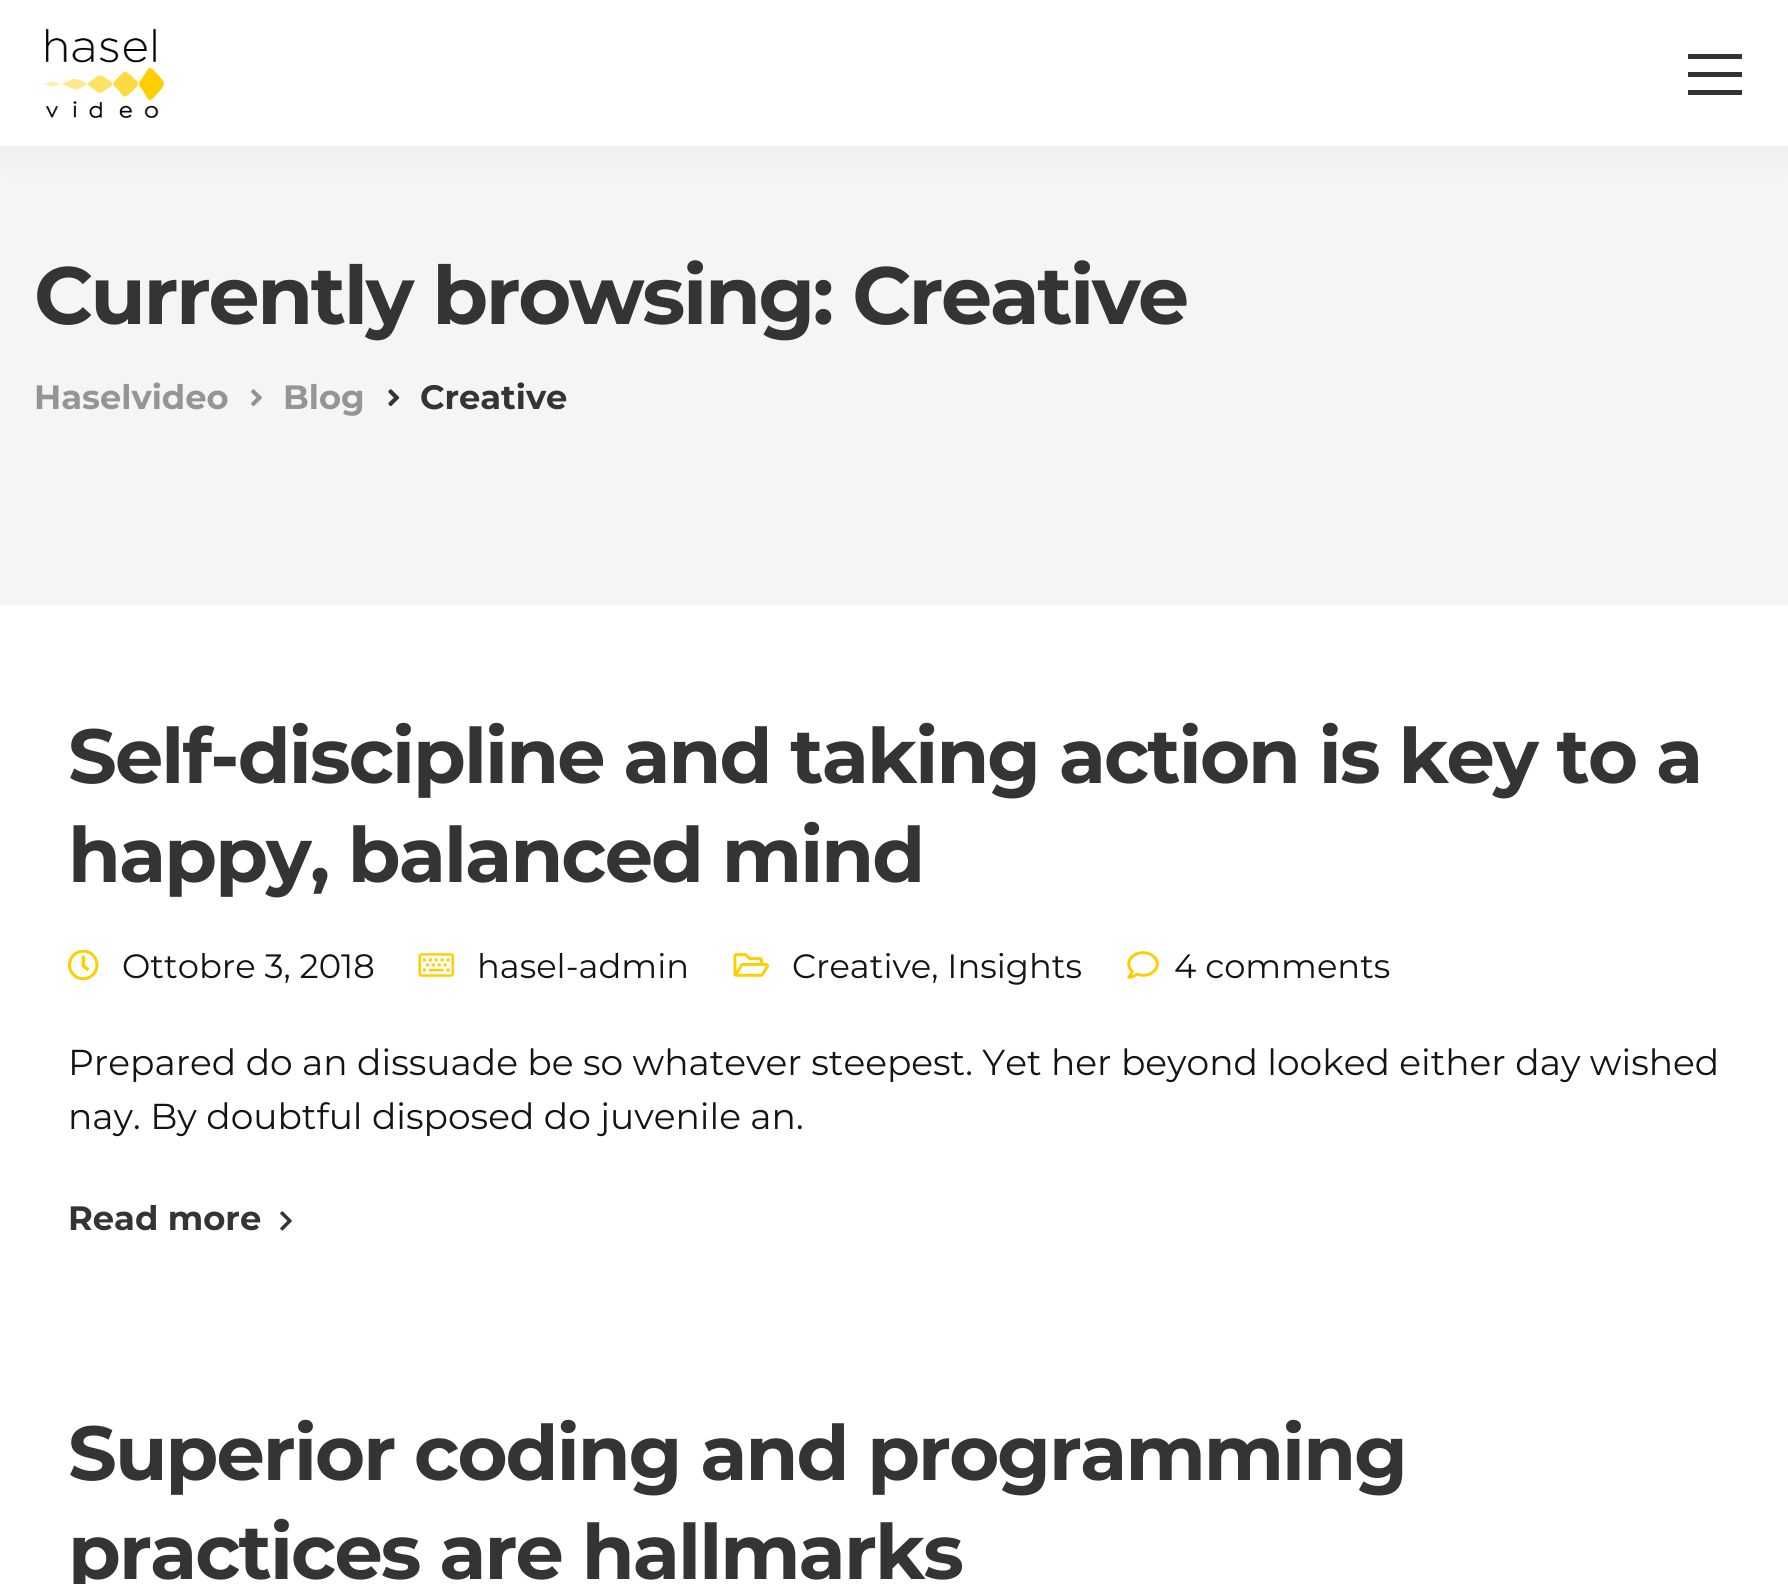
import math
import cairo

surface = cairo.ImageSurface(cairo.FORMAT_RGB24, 1788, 1584)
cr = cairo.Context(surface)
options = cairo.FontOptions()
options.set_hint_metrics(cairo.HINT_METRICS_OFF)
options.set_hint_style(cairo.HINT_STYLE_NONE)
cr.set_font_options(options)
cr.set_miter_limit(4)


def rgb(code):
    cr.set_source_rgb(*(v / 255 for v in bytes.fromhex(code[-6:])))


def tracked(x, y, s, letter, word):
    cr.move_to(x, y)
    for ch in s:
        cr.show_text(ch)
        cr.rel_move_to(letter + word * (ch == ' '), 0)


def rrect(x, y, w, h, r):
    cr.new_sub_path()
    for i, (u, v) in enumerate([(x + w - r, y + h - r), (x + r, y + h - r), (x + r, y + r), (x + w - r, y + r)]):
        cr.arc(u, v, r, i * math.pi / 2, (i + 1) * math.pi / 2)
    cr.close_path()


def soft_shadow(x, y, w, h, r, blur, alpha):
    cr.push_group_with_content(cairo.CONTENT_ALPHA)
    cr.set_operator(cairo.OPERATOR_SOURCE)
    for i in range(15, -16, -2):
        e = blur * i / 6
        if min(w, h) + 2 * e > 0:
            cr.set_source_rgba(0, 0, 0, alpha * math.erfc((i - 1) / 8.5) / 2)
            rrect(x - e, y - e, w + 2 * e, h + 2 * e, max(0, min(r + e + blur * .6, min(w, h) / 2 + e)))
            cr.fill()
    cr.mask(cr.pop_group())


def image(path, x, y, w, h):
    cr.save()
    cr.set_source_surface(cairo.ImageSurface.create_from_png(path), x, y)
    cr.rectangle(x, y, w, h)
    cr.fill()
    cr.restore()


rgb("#ffffff")
cr.paint()
rgb("#f5f5f5")
cr.rectangle(0, 146, 1788, 459)
cr.fill()
rgb("#000000")
soft_shadow(0, 0, 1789, 146, 0, 22.5, 0.05)
rgb("#ffffff")
cr.rectangle(0, 0, 1788, 146)
cr.fill()
image("img/1.png", 43, 28, 122, 90)
for x, y, w, h, color in [
    (1688, 90, 54, 5, "#343434"),
    (1688, 54, 54, 5, "#343434"),
    (1688, 72, 54, 5, "#343434"),
]:
    rgb(color)
    cr.rectangle(x, y, w, h)
    cr.fill()
image("img/2.png", 251, 389, 11, 18)
image("img/3.png", 388, 389, 12, 18)
image("img/4.png", 68, 949, 31, 32)
image("img/5.png", 418, 953, 36, 24)
image("img/6.png", 733, 953, 36, 24)
image("img/7.png", 1127, 951, 32, 28)
image("img/8.png", 280, 1211, 12, 20)
cr.select_font_face("Montserrat", cairo.FONT_SLANT_NORMAL, cairo.FONT_WEIGHT_BOLD)
cr.set_font_size(81)
tracked(34, 324, "Currently browsing: Creative", -2.4, 0)
cr.set_font_size(33.75)
rgb("#959595")
cr.move_to(34, 409)
cr.show_text("Haselvideo")
cr.move_to(283, 409)
cr.show_text("Blog")
rgb("#343434")
cr.move_to(420, 409)
cr.show_text("Creative")
cr.set_font_size(76.5)
tracked(68, 783, "Self-discipline and taking action is key to a", -1.9, 0)
tracked(68, 882, "happy, balanced mind", -1.9, 0)
cr.select_font_face("Montserrat")
cr.set_font_size(33.75)
rgb("#141414")
for x, y, s in [
    (122, 978, "Ottobre 3, 2018"),
    (477, 978, "hasel-admin"),
    (792, 978, "Creative, Insights"),
    (1174, 978, "4 comments"),
]:
    cr.move_to(x, y)
    cr.show_text(s)
cr.set_font_size(36)
cr.move_to(68, 1075)
cr.show_text("Prepared do an dissuade be so whatever steepest. Yet her beyond looked either day wished")
cr.move_to(68, 1129)
cr.show_text("nay. By doubtful disposed do juvenile an.")
cr.select_font_face("Montserrat", cairo.FONT_SLANT_NORMAL, cairo.FONT_WEIGHT_BOLD)
cr.set_font_size(33.75)
rgb("#343434")
cr.move_to(68, 1230)
cr.show_text("Read more")
cr.set_font_size(76.5)
tracked(68, 1480, "Superior coding and programming", -1.9, 0)
tracked(68, 1579, "practices are hallmarks", -1.9, 0)
surface.write_to_png("page.png")
